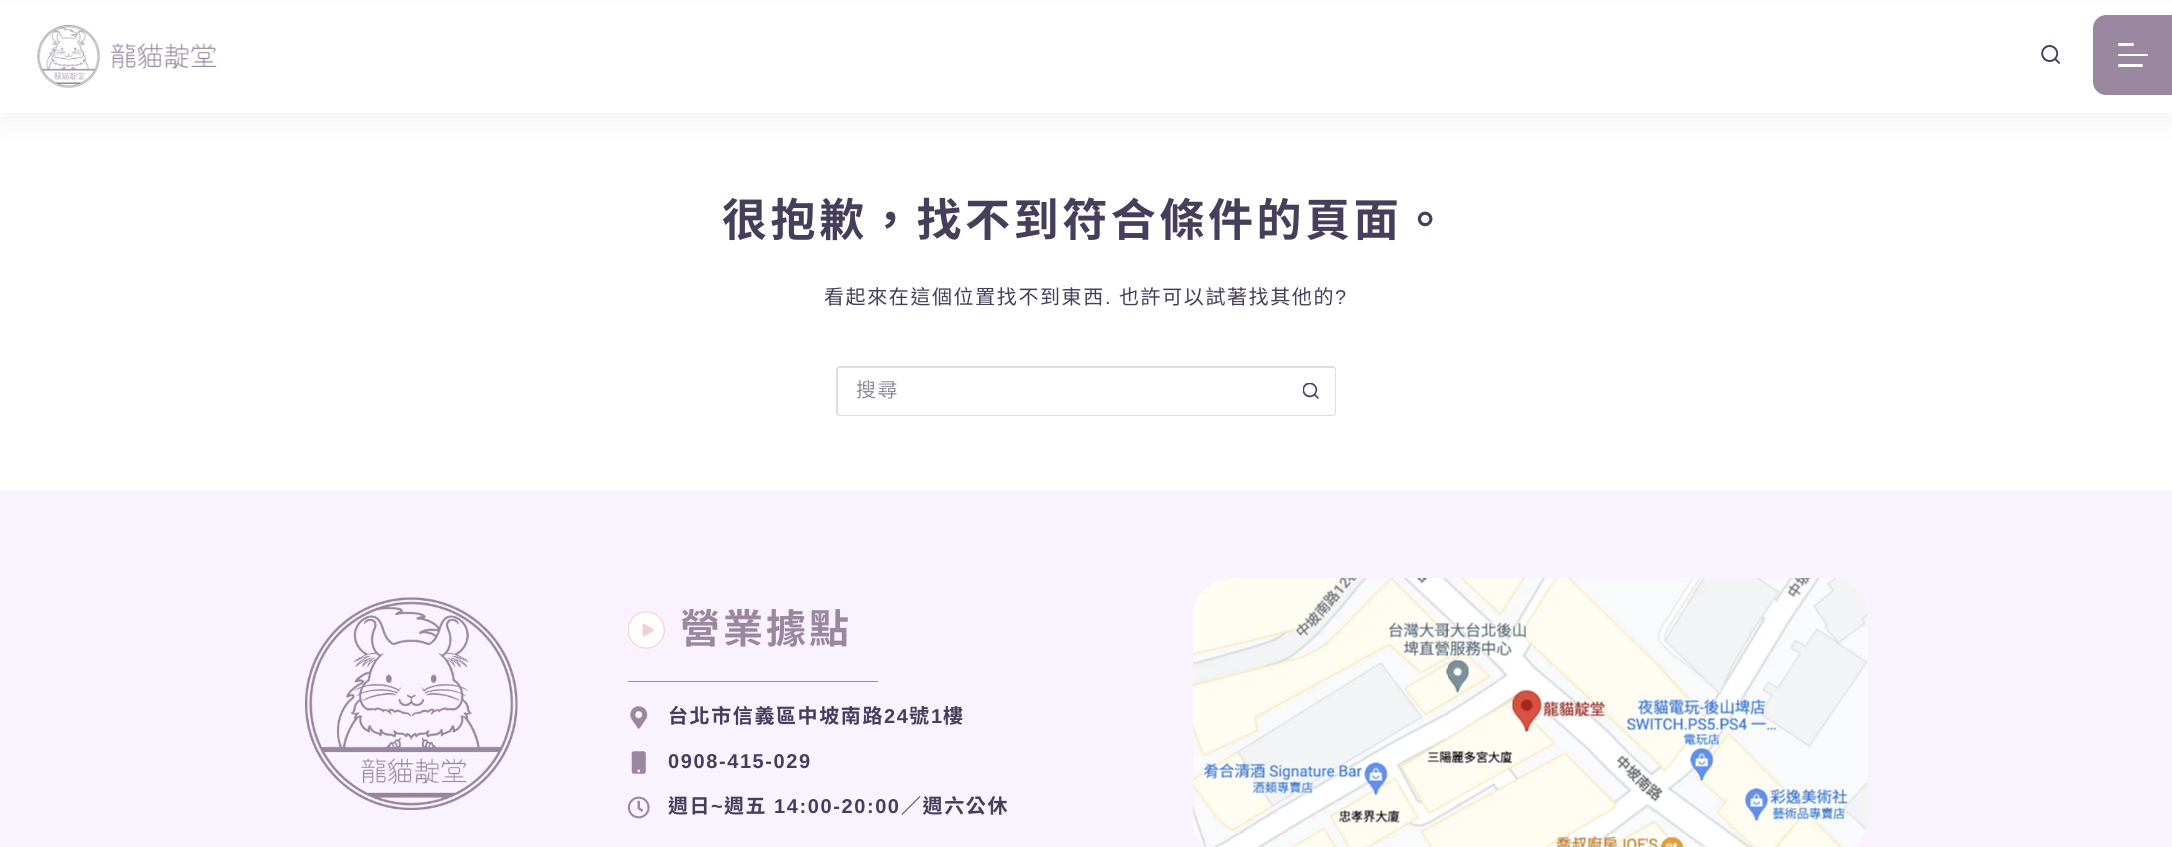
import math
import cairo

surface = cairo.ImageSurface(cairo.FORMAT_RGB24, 2172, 847)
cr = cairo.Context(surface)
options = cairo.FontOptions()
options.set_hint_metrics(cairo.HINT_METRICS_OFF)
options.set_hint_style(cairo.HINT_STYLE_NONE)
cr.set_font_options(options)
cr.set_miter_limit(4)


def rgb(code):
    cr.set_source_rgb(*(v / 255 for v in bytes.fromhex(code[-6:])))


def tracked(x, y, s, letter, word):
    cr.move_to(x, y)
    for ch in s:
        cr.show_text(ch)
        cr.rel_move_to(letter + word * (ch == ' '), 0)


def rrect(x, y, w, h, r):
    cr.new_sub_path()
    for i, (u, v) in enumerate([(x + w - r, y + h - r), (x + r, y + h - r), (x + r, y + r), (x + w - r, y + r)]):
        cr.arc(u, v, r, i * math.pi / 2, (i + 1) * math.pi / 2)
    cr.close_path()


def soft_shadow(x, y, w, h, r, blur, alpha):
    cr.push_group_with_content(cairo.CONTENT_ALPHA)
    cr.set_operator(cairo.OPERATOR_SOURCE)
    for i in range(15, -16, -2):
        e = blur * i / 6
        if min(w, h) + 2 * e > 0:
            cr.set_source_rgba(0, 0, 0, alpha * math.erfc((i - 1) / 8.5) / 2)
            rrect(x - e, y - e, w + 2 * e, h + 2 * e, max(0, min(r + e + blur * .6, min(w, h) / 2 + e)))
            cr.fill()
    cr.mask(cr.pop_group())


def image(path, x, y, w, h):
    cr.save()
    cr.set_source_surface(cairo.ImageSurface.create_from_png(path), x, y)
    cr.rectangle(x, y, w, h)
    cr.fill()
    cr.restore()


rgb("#ffffff")
cr.paint()
rgb("#2c3e50")
soft_shadow(0, 13, 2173, 112, 0, 12.5, 0.05)
rgb("#ffffff")
cr.rectangle(0, 5, 2172, 108)
cr.fill()
image("img/1.png", 37, 25, 180, 63)
image("img/2.png", 2041, 45, 19, 19)
rgb("#9a88a0")
cr.new_path()
cr.move_to(2106, 15)
cr.line_to(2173, 15)
cr.line_to(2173, 95)
cr.line_to(2106, 95)
cr.curve_to(2099, 95, 2093, 89, 2093, 82)
cr.line_to(2093, 28)
cr.curve_to(2093, 21, 2099, 15, 2106, 15)
cr.close_path()
cr.fill()
rgb("#ffffff")
rrect(2118, 43, 16, 3, 1.5)
cr.fill()
rrect(2118, 54, 30, 2, 1)
cr.fill()
rrect(2118, 64, 25, 3, 1.5)
cr.fill()
rgb("#dddddd")
cr.set_fill_rule(cairo.FILL_RULE_EVEN_ODD)
cr.new_path()
cr.move_to(840, 366)
cr.line_to(1286, 366)
cr.line_to(1286, 416)
cr.line_to(840, 416)
cr.curve_to(838, 416, 836, 415, 836, 412)
cr.line_to(836, 370)
cr.curve_to(836, 368, 838, 366, 840, 366)
cr.close_path()
cr.move_to(840, 368)
cr.line_to(1286, 368)
cr.line_to(1286, 415)
cr.line_to(840, 415)
cr.curve_to(839, 415, 838, 414, 838, 412)
cr.line_to(838, 370)
cr.curve_to(838, 369, 839, 368, 840, 368)
cr.close_path()
cr.fill()
cr.new_path()
cr.move_to(1286, 366)
cr.line_to(1332, 366)
cr.curve_to(1335, 366, 1336, 368, 1336, 370)
cr.line_to(1336, 412)
cr.curve_to(1336, 415, 1335, 416, 1332, 416)
cr.line_to(1286, 416)
cr.close_path()
cr.move_to(1286, 368)
cr.line_to(1332, 368)
cr.curve_to(1334, 368, 1335, 369, 1335, 370)
cr.line_to(1335, 412)
cr.curve_to(1335, 414, 1334, 415, 1332, 415)
cr.line_to(1286, 415)
cr.close_path()
cr.fill()
image("img/3.png", 1303, 383, 16, 16)
rgb("#f9f2ff")
cr.rectangle(0, 491, 2172, 356)
cr.fill()
image("img/4.png", 305, 597, 213, 213)
image("img/5.png", 628, 611, 37, 38)
rgb("#9a88a0")
cr.rectangle(628, 681, 250, 1)
cr.fill()
image("img/6.png", 630, 706, 18, 23)
image("img/7.png", 631, 751, 15, 23)
image("img/8.png", 628, 796, 22, 23)
image("img/9.png", 1193, 578, 675, 269)
cr.select_font_face("Noto Sans TC", cairo.FONT_SLANT_NORMAL, cairo.FONT_WEIGHT_BOLD)
cr.set_font_size(45)
rgb("#463f5b")
tracked(722, 236, "很抱歉，找不到符合條件的頁面。", 3.6, 0)
cr.select_font_face("Noto Sans CJK TC")
cr.set_font_size(20)
tracked(824, 304, "看起來在這個位置找不到東西", 1.6, 0)
cr.select_font_face("Liberation Sans")
tracked(1105, 304, ".", 1.6, 0)
cr.select_font_face("Noto Sans CJK TC")
tracked(1119, 304, "也許可以試著找其他的", 1.6, 0)
cr.select_font_face("Liberation Sans")
tracked(1335, 304, "?", 1.6, 0)
cr.select_font_face("Noto Sans CJK TC")
rgb("#908c9d")
tracked(856, 397, "搜尋", 1.6, 0)
cr.select_font_face("Noto Sans TC", cairo.FONT_SLANT_NORMAL, cairo.FONT_WEIGHT_BOLD)
cr.set_font_size(40)
rgb("#9a88a0")
tracked(680, 643, "營業據點", 3, 0)
cr.set_font_size(20)
rgb("#463f5b")
tracked(668, 723, "台北市信義區中坡南路", 1.6, 0)
cr.select_font_face("Liberation Sans", cairo.FONT_SLANT_NORMAL, cairo.FONT_WEIGHT_BOLD)
tracked(884, 723, "24", 1.6, 0)
cr.select_font_face("Noto Sans TC", cairo.FONT_SLANT_NORMAL, cairo.FONT_WEIGHT_BOLD)
tracked(909, 723, "號", 1.6, 0)
cr.select_font_face("Liberation Sans", cairo.FONT_SLANT_NORMAL, cairo.FONT_WEIGHT_BOLD)
tracked(931, 723, "1", 1.6, 0)
cr.select_font_face("Noto Sans TC", cairo.FONT_SLANT_NORMAL, cairo.FONT_WEIGHT_BOLD)
tracked(943, 723, "樓", 1.6, 0)
cr.select_font_face("Liberation Sans", cairo.FONT_SLANT_NORMAL, cairo.FONT_WEIGHT_BOLD)
tracked(668, 768, "0908-415-029", 1.6, 0)
cr.select_font_face("Noto Sans TC", cairo.FONT_SLANT_NORMAL, cairo.FONT_WEIGHT_BOLD)
tracked(668, 813, "週日", 1.6, 0)
cr.select_font_face("Liberation Sans", cairo.FONT_SLANT_NORMAL, cairo.FONT_WEIGHT_BOLD)
tracked(711, 813, "~", 1.6, 0)
cr.select_font_face("Noto Sans TC", cairo.FONT_SLANT_NORMAL, cairo.FONT_WEIGHT_BOLD)
tracked(724, 813, "週五", 1.6, 0)
cr.select_font_face("Liberation Sans", cairo.FONT_SLANT_NORMAL, cairo.FONT_WEIGHT_BOLD)
tracked(774, 813, "14:00-20:00", 1.6, 0)
cr.select_font_face("Noto Sans TC", cairo.FONT_SLANT_NORMAL, cairo.FONT_WEIGHT_BOLD)
tracked(901, 813, "／週六公休", 1.6, 0)
surface.write_to_png("page.png")
